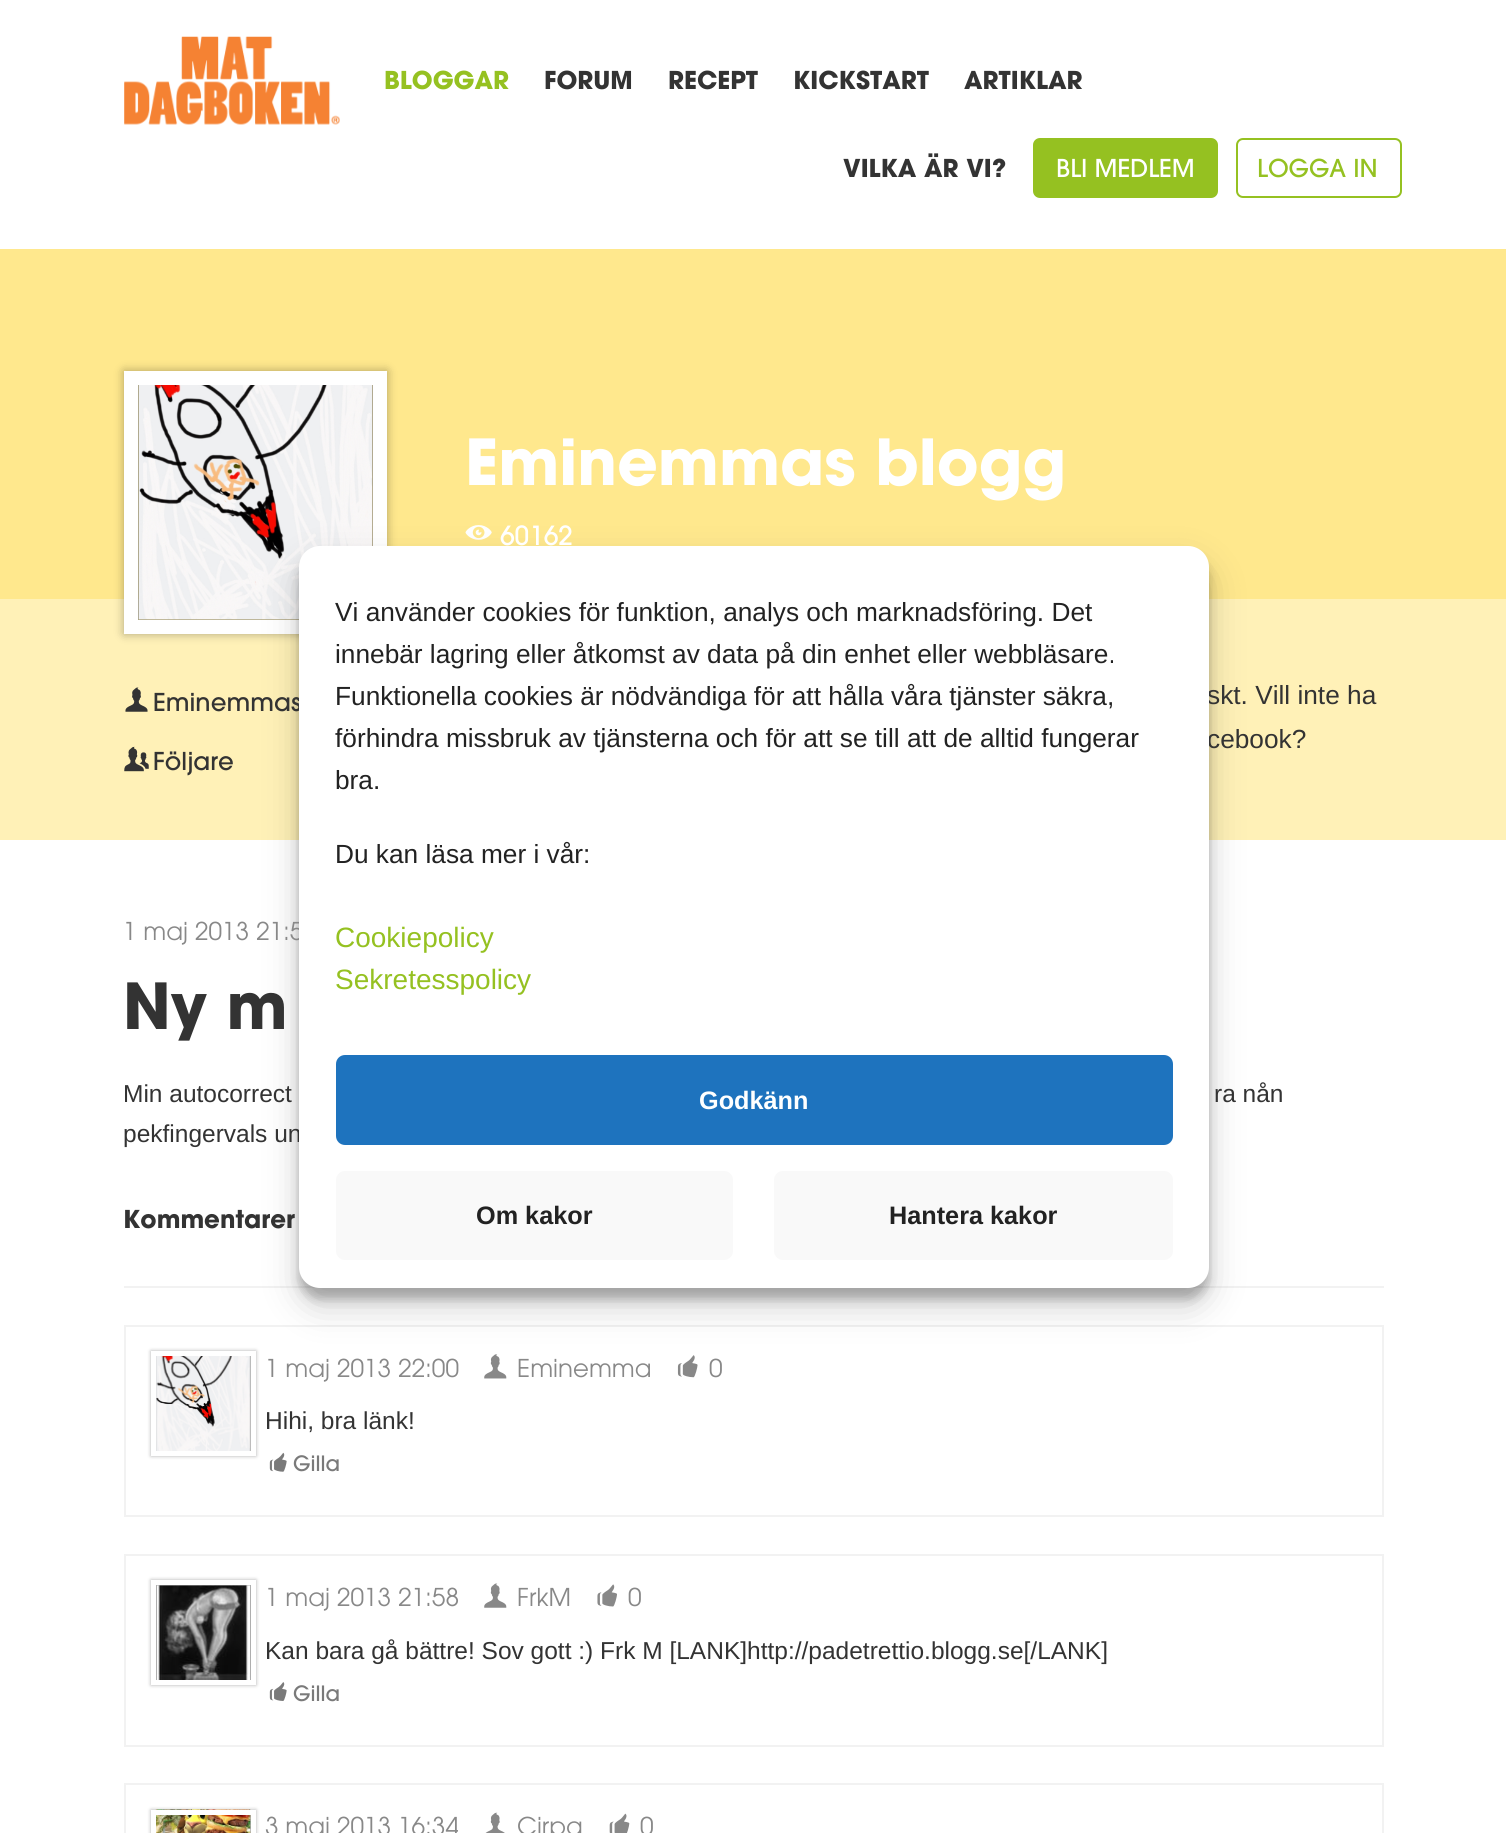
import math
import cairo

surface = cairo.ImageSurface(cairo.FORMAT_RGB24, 1506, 1833)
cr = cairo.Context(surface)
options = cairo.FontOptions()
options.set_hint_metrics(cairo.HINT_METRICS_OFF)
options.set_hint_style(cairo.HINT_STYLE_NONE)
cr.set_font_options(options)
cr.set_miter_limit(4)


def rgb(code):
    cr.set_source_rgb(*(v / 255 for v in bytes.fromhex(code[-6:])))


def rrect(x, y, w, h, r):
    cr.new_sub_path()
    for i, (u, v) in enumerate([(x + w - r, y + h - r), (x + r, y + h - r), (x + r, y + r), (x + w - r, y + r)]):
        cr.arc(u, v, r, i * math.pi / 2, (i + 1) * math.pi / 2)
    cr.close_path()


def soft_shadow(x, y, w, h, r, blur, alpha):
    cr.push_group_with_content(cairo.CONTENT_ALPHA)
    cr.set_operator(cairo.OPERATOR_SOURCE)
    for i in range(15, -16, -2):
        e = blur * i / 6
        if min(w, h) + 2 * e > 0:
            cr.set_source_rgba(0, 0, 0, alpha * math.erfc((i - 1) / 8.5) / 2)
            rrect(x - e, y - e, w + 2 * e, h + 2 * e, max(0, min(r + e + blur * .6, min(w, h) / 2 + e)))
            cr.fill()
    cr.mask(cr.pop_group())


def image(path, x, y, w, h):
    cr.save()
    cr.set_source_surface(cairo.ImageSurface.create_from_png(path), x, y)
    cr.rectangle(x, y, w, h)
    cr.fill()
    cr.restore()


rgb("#ffffff")
cr.paint()
image("img/1.png", 124, 36, 216, 89)
rgb("#95c121")
rrect(1034, 139, 183, 58, 6)
cr.fill_preserve()
cr.stroke()
rrect(1237, 139, 164, 58, 6)
cr.stroke()
rgb("#ffe88d")
cr.rectangle(0, 249, 1506, 350)
cr.fill()
rgb("#fff1b7")
cr.rectangle(0, 599, 1506, 241)
cr.fill()
rgb("#000000")
soft_shadow(124, 371, 263, 263, 0, 5, 0.32)
cr.rectangle(131, 378, 249, 249)
rgb("#ffffff")
cr.set_line_width(14)
cr.stroke()
image("img/2.png", 138, 385, 235, 235)
image("img/3.png", 465, 525, 27, 15)
image("img/4.png", 125, 687, 23, 25)
image("img/5.png", 124, 746, 25, 26)
rgb("#f2f2f2")
cr.rectangle(124, 1286, 1260, 2)
cr.fill()
cr.rectangle(125, 1326, 1258, 190)
cr.set_line_width(2)
cr.stroke()
rgb("#000000")
soft_shadow(151, 1351, 105, 105, 0, 2, 0.32)
image("img/6.png", 156, 1356, 95, 95)
cr.rectangle(153.5, 1353.5, 100, 100)
rgb("#ffffff")
cr.set_line_width(5)
cr.stroke()
image("img/7.png", 484, 1354, 23, 25)
image("img/8.png", 677, 1355, 21, 23)
image("img/9.png", 269, 1452, 18, 20)
cr.rectangle(125, 1555, 1258, 191)
rgb("#f2f2f2")
cr.set_line_width(2)
cr.stroke()
rgb("#000000")
soft_shadow(151, 1580, 105, 105, 0, 2, 0.32)
image("img/10.png", 157, 1585, 93, 95)
cr.rectangle(153.5, 1582.5, 100, 100)
rgb("#ffffff")
cr.set_line_width(5)
cr.stroke()
image("img/11.png", 484, 1583, 23, 25)
image("img/12.png", 597, 1584, 20, 23)
image("img/13.png", 269, 1682, 18, 19)
cr.rectangle(125, 1784, 1258, 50)
rgb("#f2f2f2")
cr.set_line_width(2)
cr.stroke()
rgb("#000000")
soft_shadow(151, 1810, 105, 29, 0, 2, 0.32)
image("img/14.png", 155, 1809, 96, 24)
cr.rectangle(153.5, 1812.5, 100, 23)
rgb("#ffffff")
cr.set_line_width(5)
cr.stroke()
image("img/15.png", 485, 1812, 20, 21)
image("img/16.png", 609, 1813, 21, 20)
rgb("#000000")
soft_shadow(299, 557, 910, 742, 21, 5, 0.23)
soft_shadow(299, 564, 910, 742, 21, 17.5, 0.19)
cr.select_font_face("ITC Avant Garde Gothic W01", cairo.FONT_SLANT_NORMAL, cairo.FONT_WEIGHT_BOLD)
cr.set_font_size(24.5)
rgb("#95c121")
cr.move_to(384, 89)
cr.show_text("BLOGGAR")
rgb("#333333")
for x, y, s in [
    (544, 89, "FORUM"),
    (668, 89, "RECEPT"),
    (793, 89, "KICKSTART"),
    (964, 89, "ARTIKLAR"),
    (843, 177, "VILKA ÄR VI?"),
]:
    cr.move_to(x, y)
    cr.show_text(s)
cr.select_font_face("ITC Avant Garde Gothic W01 Medium")
rgb("#ffffff")
cr.move_to(1056, 177)
cr.show_text("BLI MEDLEM")
rgb("#95c121")
cr.move_to(1257, 177)
cr.show_text("LOGGA IN")
cr.select_font_face("ITC Avant Garde Gothic W01", cairo.FONT_SLANT_NORMAL, cairo.FONT_WEIGHT_BOLD)
cr.set_font_size(63)
rgb("#ffffff")
cr.move_to(465, 485)
cr.show_text("Eminemmas blogg")
cr.select_font_face("ITC Avant Garde Gothic W01 Medium")
cr.set_font_size(26.25)
cr.move_to(500, 545)
cr.show_text("60162")
cr.set_font_size(24.5)
rgb("#333333")
cr.move_to(153, 711)
cr.show_text("Eminemmas")
cr.move_to(153, 770)
cr.show_text("Följare")
cr.select_font_face("Liberation Sans")
cr.set_font_size(26.25)
cr.move_to(1207, 704)
cr.show_text("skt. Vill inte ha")
cr.move_to(1207, 748)
cr.show_text("cebook?")
cr.select_font_face("ITC Avant Garde Gothic W01")
cr.set_font_size(24.5)
rgb("#888888")
cr.move_to(123, 940)
cr.show_text("1 maj 2013 21:5")
cr.select_font_face("ITC Avant Garde Gothic W01", cairo.FONT_SLANT_NORMAL, cairo.FONT_WEIGHT_BOLD)
cr.set_font_size(63)
rgb("#333333")
cr.move_to(123, 1029)
cr.show_text("Ny m")
cr.select_font_face("Liberation Sans")
cr.set_font_size(24.5)
for x, y, s in [
    (123, 1102, "Min autocorrect"),
    (1214, 1102, "ra nån"),
    (123, 1142, "pekfingervals un"),
]:
    cr.move_to(x, y)
    cr.show_text(s)
cr.select_font_face("ITC Avant Garde Gothic W01", cairo.FONT_SLANT_NORMAL, cairo.FONT_WEIGHT_BOLD)
cr.move_to(123, 1228)
cr.show_text("Kommentarer")
cr.select_font_face("ITC Avant Garde Gothic W01")
rgb("#888888")
for x, y, s in [
    (265, 1377, "1 maj 2013 22:00"),
    (517, 1377, "Eminemma"),
    (709, 1377, "0"),
]:
    cr.move_to(x, y)
    cr.show_text(s)
cr.select_font_face("Liberation Sans")
rgb("#333333")
cr.move_to(265, 1429)
cr.show_text("Hihi, bra länk!")
cr.select_font_face("ITC Avant Garde Gothic W01 Medium")
cr.set_font_size(21)
rgb("#7a7a7a")
cr.move_to(293, 1471)
cr.show_text("Gilla")
cr.select_font_face("ITC Avant Garde Gothic W01")
cr.set_font_size(24.5)
rgb("#888888")
for x, y, s in [
    (265, 1606, "1 maj 2013 21:58"),
    (517, 1606, "FrkM"),
    (628, 1606, "0"),
]:
    cr.move_to(x, y)
    cr.show_text(s)
cr.select_font_face("Liberation Sans")
rgb("#333333")
cr.move_to(265, 1659)
cr.show_text("Kan bara gå bättre! Sov gott :) Frk M [LANK]http://padetrettio.blogg.se[/LANK]")
cr.select_font_face("ITC Avant Garde Gothic W01 Medium")
cr.set_font_size(21)
rgb("#7a7a7a")
cr.move_to(293, 1701)
cr.show_text("Gilla")
cr.select_font_face("ITC Avant Garde Gothic W01")
cr.set_font_size(24.5)
rgb("#888888")
for x, y, s in [
    (265, 1835, "3 maj 2013 16:34"),
    (517, 1835, "Cirpa"),
    (640, 1835, "0"),
]:
    cr.move_to(x, y)
    cr.show_text(s)
rgb("#ffffff")
rrect(300, 547, 908, 740, 20)
cr.fill_preserve()
cr.set_line_width(2)
cr.stroke()
cr.select_font_face("Liberation Sans")
cr.set_font_size(26.25)
rgb("#222222")
for x, y, s in [
    (335, 621, "Vi använder cookies för funktion, analys och marknadsföring. Det"),
    (335, 663, "innebär lagring eller åtkomst av data på din enhet eller webbläsare."),
    (335, 705, "Funktionella cookies är nödvändiga för att hålla våra tjänster säkra,"),
    (335, 747, "förhindra missbruk av tjänsterna och för att se till att de alltid fungerar"),
    (335, 789, "bra."),
    (335, 863, "Du kan läsa mer i vår:"),
]:
    cr.move_to(x, y)
    cr.show_text(s)
cr.set_font_size(28)
rgb("#95c121")
cr.move_to(335, 947)
cr.show_text("Cookiepolicy")
cr.move_to(335, 989)
cr.show_text("Sekretesspolicy")
rgb("#1e73be")
rrect(338, 1057, 833, 86, 7)
cr.fill_preserve()
cr.set_line_width(4)
cr.stroke()
cr.select_font_face("Liberation Sans", cairo.FONT_SLANT_NORMAL, cairo.FONT_WEIGHT_BOLD)
cr.set_font_size(25.25)
rgb("#ffffff")
cr.move_to(699, 1109)
cr.show_text("Godkänn")
rgb("#f9f9f9")
rrect(336, 1171, 397, 89, 9)
cr.fill()
rgb("#222222")
cr.move_to(476, 1224)
cr.show_text("Om kakor")
rgb("#f9f9f9")
rrect(774, 1171, 399, 89, 9)
cr.fill()
rgb("#222222")
cr.move_to(889, 1224)
cr.show_text("Hantera kakor")
surface.write_to_png("page.png")
